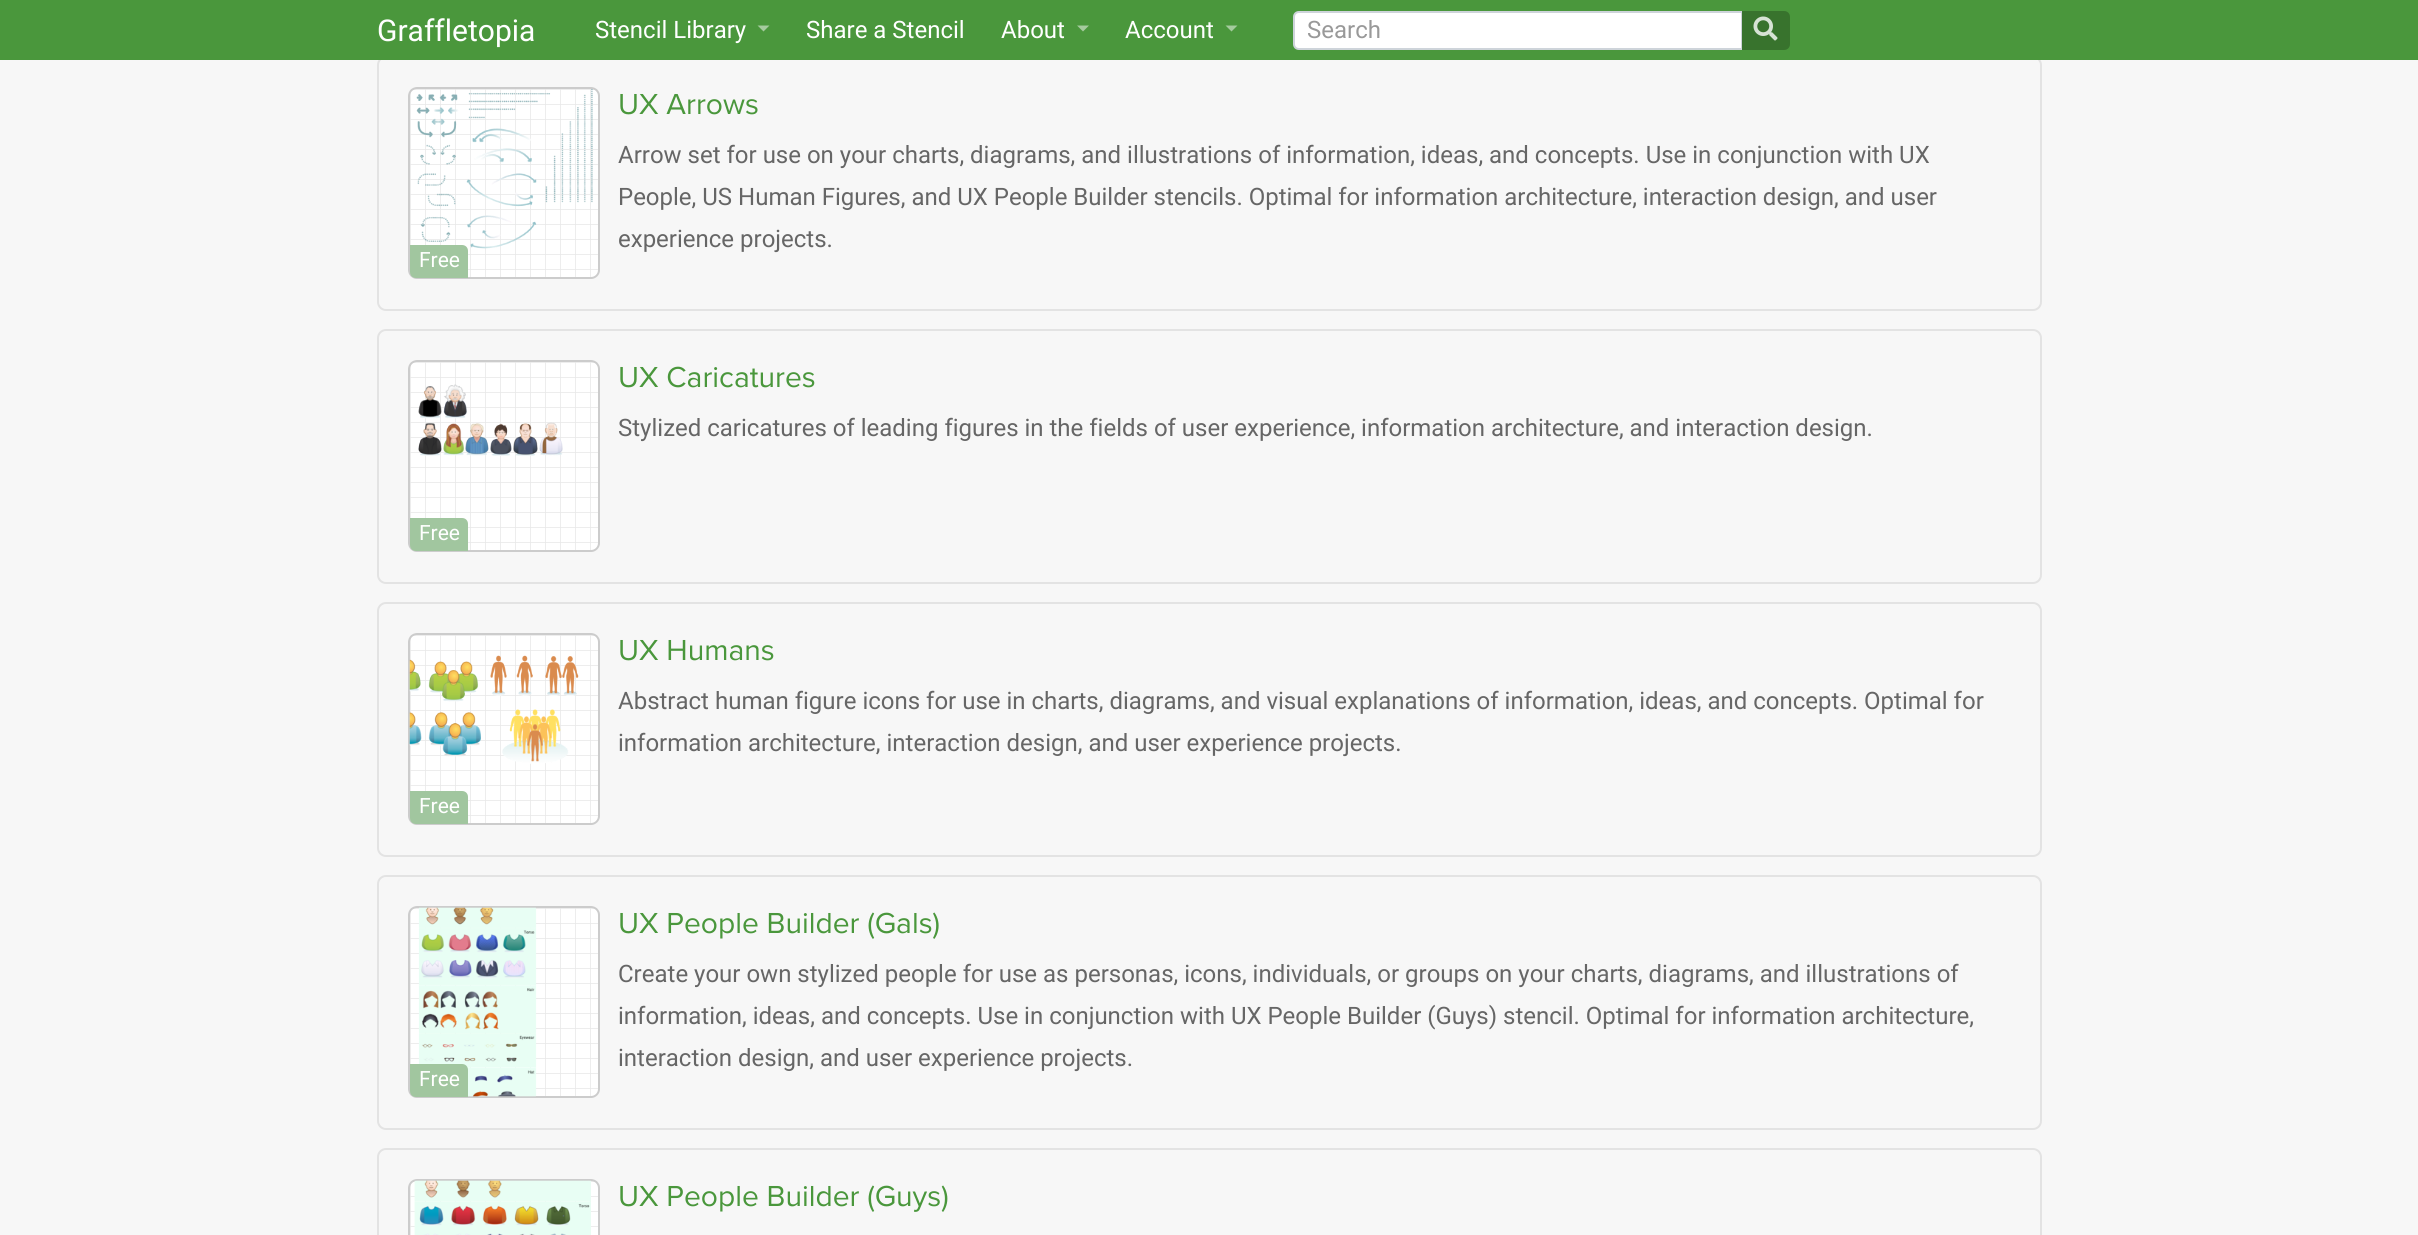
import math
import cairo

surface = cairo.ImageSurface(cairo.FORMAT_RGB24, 2418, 1235)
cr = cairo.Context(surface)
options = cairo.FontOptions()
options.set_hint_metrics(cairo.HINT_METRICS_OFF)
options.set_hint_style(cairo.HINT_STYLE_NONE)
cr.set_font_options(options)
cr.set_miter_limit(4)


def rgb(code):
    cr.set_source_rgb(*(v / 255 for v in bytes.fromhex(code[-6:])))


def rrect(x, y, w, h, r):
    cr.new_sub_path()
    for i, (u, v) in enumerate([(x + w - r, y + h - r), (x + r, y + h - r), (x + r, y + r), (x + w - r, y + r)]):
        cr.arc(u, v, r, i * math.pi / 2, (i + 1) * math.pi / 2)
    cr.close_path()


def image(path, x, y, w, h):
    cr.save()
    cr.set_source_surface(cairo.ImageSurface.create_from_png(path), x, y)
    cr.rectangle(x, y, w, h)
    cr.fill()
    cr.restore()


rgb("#f7f7f7")
cr.paint()
rrect(378, 57, 1663, 253, 8)
rgb("#e3e3e3")
cr.stroke()
rgb("#4a973c")
cr.rectangle(0, 0, 2418, 60)
cr.fill()
rgb("#a5cb9e")
cr.new_path()
cr.move_to(757.5, 25.5)
cr.line_to(769.5, 25.5)
cr.line_to(763.5, 31.5)
cr.close_path()
cr.fill()
cr.new_path()
cr.move_to(1077, 25.5)
cr.line_to(1089, 25.5)
cr.line_to(1083, 31.5)
cr.close_path()
cr.fill()
cr.new_path()
cr.move_to(1225.5, 25.5)
cr.line_to(1237.5, 25.5)
cr.line_to(1231.5, 31.5)
cr.close_path()
cr.fill()
rgb("#ffffff")
cr.new_path()
cr.move_to(1299, 12)
cr.line_to(1742, 12)
cr.line_to(1742, 49)
cr.line_to(1299, 49)
cr.curve_to(1296, 49, 1294, 47, 1294, 44)
cr.line_to(1294, 17)
cr.curve_to(1294, 14, 1296, 12, 1299, 12)
cr.close_path()
cr.fill_preserve()
rgb("#ced4da")
cr.stroke()
rgb("#38732d")
cr.new_path()
cr.move_to(1742, 11)
cr.line_to(1784, 11)
cr.curve_to(1787.5, 11, 1790, 13.5, 1790, 17)
cr.line_to(1790, 44)
cr.curve_to(1790, 47.5, 1787.5, 50, 1784, 50)
cr.line_to(1742, 50)
cr.close_path()
cr.fill()
image("img/1.png", 1753, 16, 25, 25)
rgb("#ffffff")
rrect(408, 87, 192, 192, 9)
cr.fill()
image("img/2.png", 410, 89, 190, 190)
rrect(409, 88, 190, 190, 8)
rgb("#cccccc")
cr.stroke()
image("img/3.png", 416, 89, 177, 160)
rgb("#a1c69f")
cr.new_path()
cr.move_to(410, 245)
cr.line_to(462, 245)
cr.curve_to(465.5, 245, 468, 247.5, 468, 251)
cr.line_to(468, 278)
cr.line_to(416, 278)
cr.curve_to(412.5, 278, 410, 275.5, 410, 272)
cr.close_path()
cr.fill()
rrect(378, 330, 1663, 253, 8)
rgb("#e3e3e3")
cr.stroke()
rgb("#ffffff")
rrect(408, 360, 192, 192, 9)
cr.fill()
image("img/4.png", 410, 362, 190, 190)
rrect(409, 361, 190, 190, 8)
rgb("#cccccc")
cr.stroke()
image("img/5.png", 418, 384, 145, 72)
rgb("#a1c69f")
cr.new_path()
cr.move_to(410, 518)
cr.line_to(462, 518)
cr.curve_to(465.5, 518, 468, 520.5, 468, 524)
cr.line_to(468, 551)
cr.line_to(416, 551)
cr.curve_to(412.5, 551, 410, 548.5, 410, 545)
cr.close_path()
cr.fill()
rrect(378, 603, 1663, 253, 8)
rgb("#e3e3e3")
cr.stroke()
rgb("#ffffff")
rrect(408, 633, 192, 192, 9)
cr.fill()
image("img/6.png", 410, 635, 190, 190)
rrect(409, 634, 190, 190, 8)
rgb("#cccccc")
cr.stroke()
image("img/7.png", 409, 655, 170, 109)
rgb("#a1c69f")
cr.new_path()
cr.move_to(410, 791)
cr.line_to(462, 791)
cr.curve_to(465.5, 791, 468, 793.5, 468, 797)
cr.line_to(468, 824)
cr.line_to(416, 824)
cr.curve_to(412.5, 824, 410, 821.5, 410, 818)
cr.close_path()
cr.fill()
rrect(378, 876, 1663, 253, 8)
rgb("#e3e3e3")
cr.stroke()
rgb("#ffffff")
rrect(408, 906, 192, 192, 9)
cr.fill()
image("img/9.png", 410, 908, 190, 190)
rrect(409, 907, 190, 190, 8)
rgb("#cccccc")
cr.stroke()
image("img/8.png", 419, 907, 117, 190)
rgb("#a1c69f")
cr.new_path()
cr.move_to(410, 1064)
cr.line_to(462, 1064)
cr.curve_to(465.5, 1064, 468, 1066.5, 468, 1070)
cr.line_to(468, 1097)
cr.line_to(416, 1097)
cr.curve_to(412.5, 1097, 410, 1094.5, 410, 1091)
cr.close_path()
cr.fill()
rrect(378, 1149, 1663, 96, 8)
rgb("#e3e3e3")
cr.stroke()
rgb("#ffffff")
rrect(408, 1179, 192, 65, 9)
cr.fill()
image("img/11.png", 410, 1181, 190, 54)
rrect(409, 1180, 190, 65, 8)
rgb("#cccccc")
cr.stroke()
image("img/10.png", 414, 1180, 177, 55)
cr.select_font_face("Roboto")
cr.set_font_size(30)
rgb("#ffffff")
cr.move_to(377, 41)
cr.show_text("Graffletopia")
cr.set_font_size(24)
for x, y, s in [
    (595, 38, "Stencil Library"),
    (806, 38, "Share a Stencil"),
    (1001, 38, "About"),
    (1125, 38, "Account"),
]:
    cr.move_to(x, y)
    cr.show_text(s)
rgb("#999999")
cr.move_to(1307, 38)
cr.show_text("Search")
cr.select_font_face("Proxima Nova")
cr.set_font_size(30)
rgb("#4a973c")
cr.move_to(618, 114)
cr.show_text("UX Arrows")
cr.select_font_face("Roboto")
cr.set_font_size(24)
rgb("#666666")
for x, y, s in [
    (618, 163, "Arrow set for use on your charts, diagrams, and illustrations of information, ideas, and concepts. Use in conjunction with UX"),
    (618, 205, "People, US Human Figures, and UX People Builder stencils. Optimal for information architecture, interaction design, and user"),
    (618, 247, "experience projects."),
]:
    cr.move_to(x, y)
    cr.show_text(s)
cr.set_font_size(21)
rgb("#ffffff")
cr.move_to(419, 267)
cr.show_text("Free")
cr.select_font_face("Proxima Nova")
cr.set_font_size(30)
rgb("#4a973c")
cr.move_to(618, 387)
cr.show_text("UX Caricatures")
cr.select_font_face("Roboto")
cr.set_font_size(24)
rgb("#666666")
cr.move_to(618, 436)
cr.show_text("Stylized caricatures of leading figures in the fields of user experience, information architecture, and interaction design.")
cr.set_font_size(21)
rgb("#ffffff")
cr.move_to(419, 540)
cr.show_text("Free")
cr.select_font_face("Proxima Nova")
cr.set_font_size(30)
rgb("#4a973c")
cr.move_to(618, 660)
cr.show_text("UX Humans")
cr.select_font_face("Roboto")
cr.set_font_size(24)
rgb("#666666")
cr.move_to(618, 709)
cr.show_text("Abstract human figure icons for use in charts, diagrams, and visual explanations of information, ideas, and concepts. Optimal for")
cr.move_to(618, 751)
cr.show_text("information architecture, interaction design, and user experience projects.")
cr.set_font_size(21)
rgb("#ffffff")
cr.move_to(419, 813)
cr.show_text("Free")
cr.select_font_face("Proxima Nova")
cr.set_font_size(30)
rgb("#4a973c")
cr.move_to(618, 933)
cr.show_text("UX People Builder (Gals)")
cr.select_font_face("Roboto")
cr.set_font_size(24)
rgb("#666666")
for x, y, s in [
    (618, 982, "Create your own stylized people for use as personas, icons, individuals, or groups on your charts, diagrams, and illustrations of"),
    (618, 1024, "information, ideas, and concepts. Use in conjunction with UX People Builder (Guys) stencil. Optimal for information architecture,"),
    (618, 1066, "interaction design, and user experience projects."),
]:
    cr.move_to(x, y)
    cr.show_text(s)
cr.set_font_size(21)
rgb("#ffffff")
cr.move_to(419, 1086)
cr.show_text("Free")
cr.select_font_face("Proxima Nova")
cr.set_font_size(30)
rgb("#4a973c")
cr.move_to(618, 1206)
cr.show_text("UX People Builder (Guys)")
surface.write_to_png("page.png")
